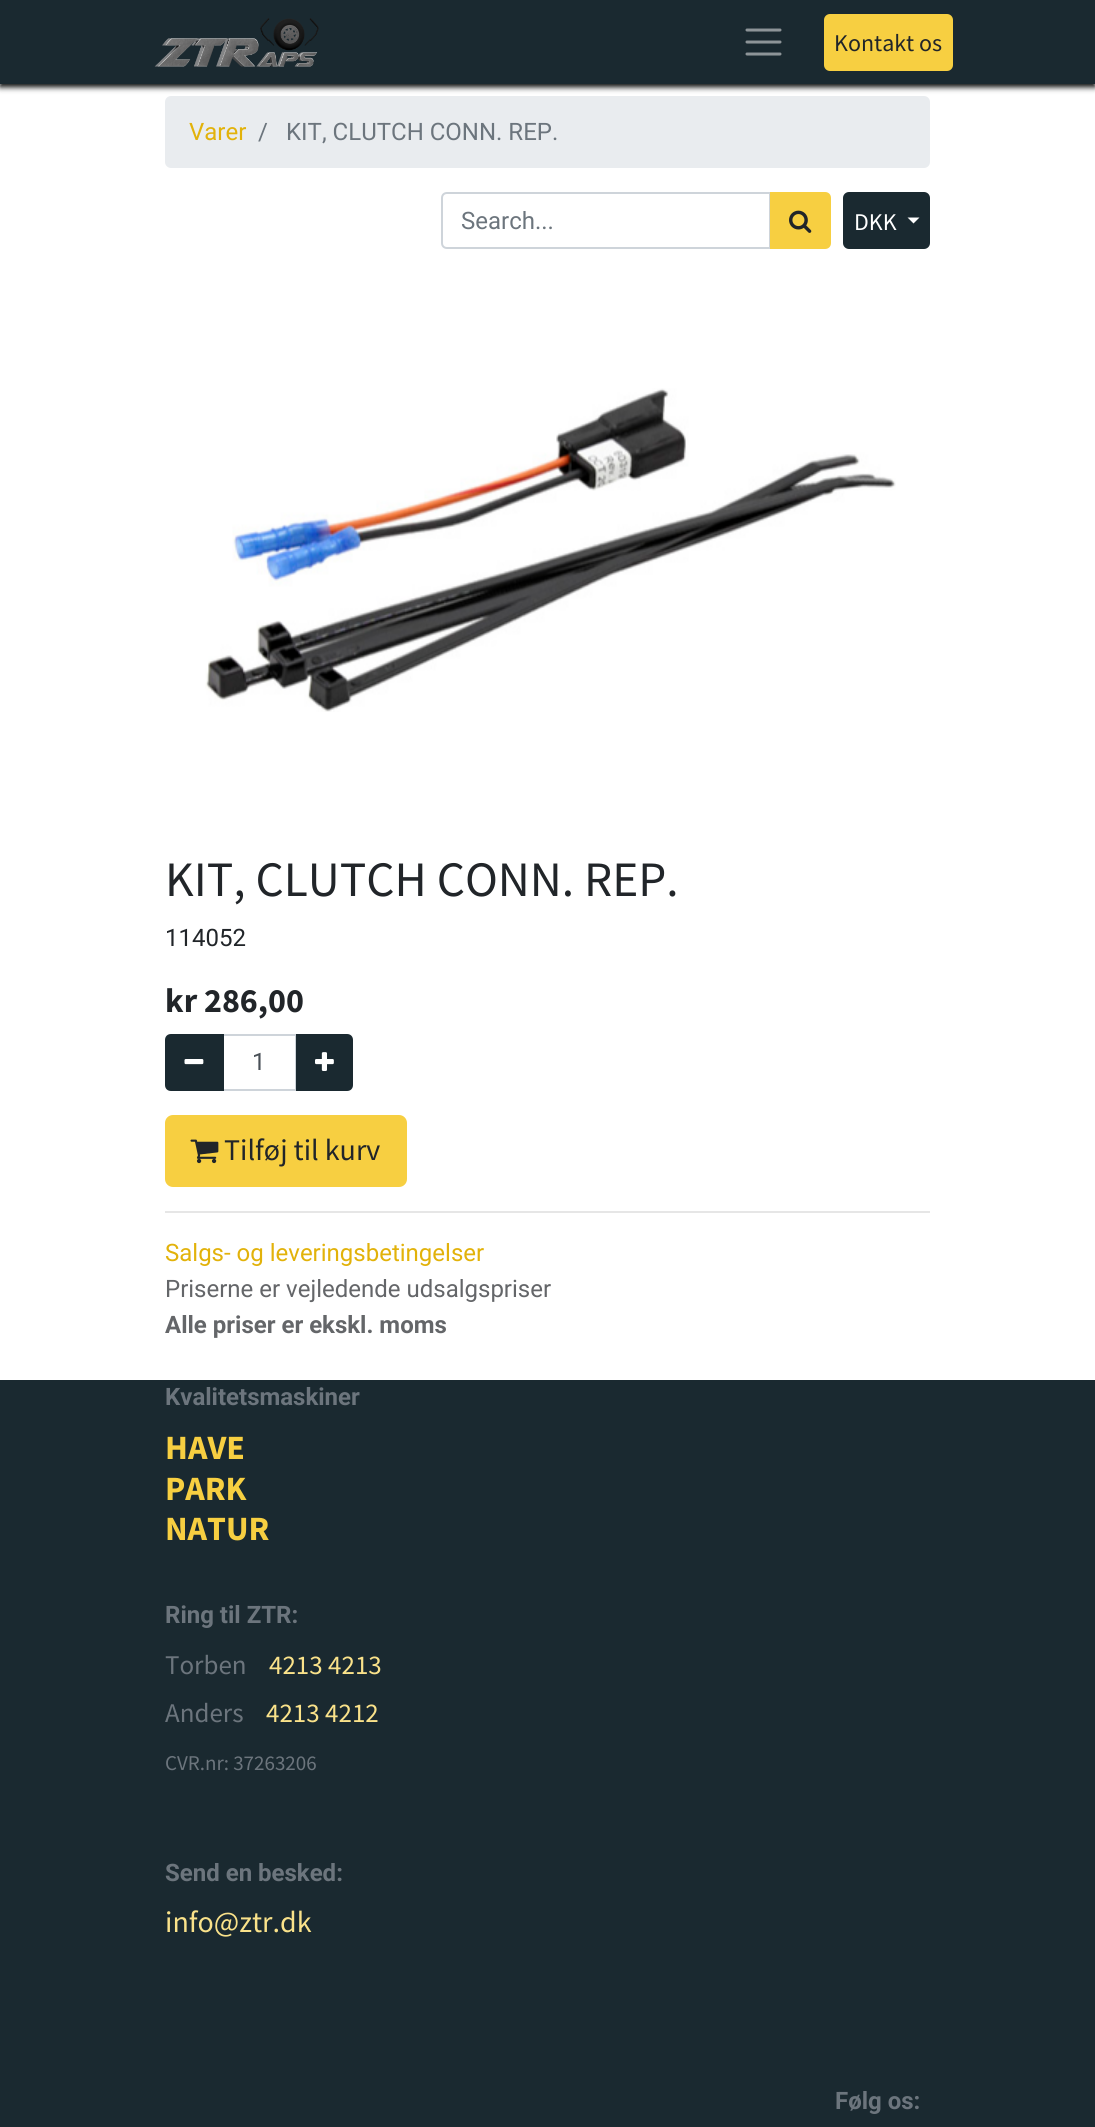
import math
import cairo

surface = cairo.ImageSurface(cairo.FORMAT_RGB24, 1095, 2127)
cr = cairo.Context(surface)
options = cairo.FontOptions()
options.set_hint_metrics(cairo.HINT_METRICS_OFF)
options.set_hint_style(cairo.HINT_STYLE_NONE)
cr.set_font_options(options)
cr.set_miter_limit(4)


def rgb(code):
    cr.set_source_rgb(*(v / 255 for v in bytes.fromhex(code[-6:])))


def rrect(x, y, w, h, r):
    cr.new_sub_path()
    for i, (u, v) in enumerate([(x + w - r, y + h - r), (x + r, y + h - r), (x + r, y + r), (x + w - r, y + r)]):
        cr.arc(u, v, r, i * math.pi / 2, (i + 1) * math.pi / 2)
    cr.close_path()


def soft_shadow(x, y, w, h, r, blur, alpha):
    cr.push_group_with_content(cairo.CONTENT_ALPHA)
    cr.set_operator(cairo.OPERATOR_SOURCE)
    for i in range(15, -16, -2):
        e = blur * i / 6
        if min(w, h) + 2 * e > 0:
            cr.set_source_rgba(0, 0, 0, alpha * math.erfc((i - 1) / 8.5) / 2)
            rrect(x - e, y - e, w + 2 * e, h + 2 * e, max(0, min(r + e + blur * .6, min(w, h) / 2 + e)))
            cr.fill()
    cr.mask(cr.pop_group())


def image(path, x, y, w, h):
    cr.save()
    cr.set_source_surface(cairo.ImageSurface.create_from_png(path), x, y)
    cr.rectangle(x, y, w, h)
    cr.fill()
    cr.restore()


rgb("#ffffff")
cr.paint()
rgb("#e9ecef")
rrect(165, 96, 765, 72, 6)
cr.fill()
rgb("#030504")
soft_shadow(0, 3, 1095, 84, 0, 3, 1)
rgb("#1a2930")
cr.rectangle(0, 0, 1095, 84)
cr.fill()
image("img/1.png", 154, 18, 165, 49)
cr.new_path()
cr.move_to(747, 30)
cr.line_to(780, 30)
cr.move_to(747, 42)
cr.line_to(780, 42)
cr.move_to(747, 54)
cr.line_to(780, 54)
rgb("#8d9498")
cr.set_line_width(3)
cr.set_line_cap(cairo.LINE_CAP_ROUND)
cr.stroke()
rgb("#f7cf41")
rrect(825, 15, 127, 55, 5)
cr.fill_preserve()
cr.set_line_width(2)
cr.set_line_cap(cairo.LINE_CAP_BUTT)
cr.stroke()
cr.new_path()
cr.move_to(447, 193)
cr.line_to(770, 193)
cr.line_to(770, 248)
cr.line_to(447, 248)
cr.curve_to(444, 248, 442, 246, 442, 243)
cr.line_to(442, 198)
cr.curve_to(442, 195, 444, 193, 447, 193)
cr.close_path()
rgb("#ced4da")
cr.stroke()
rgb("#f7cf41")
cr.new_path()
cr.move_to(771, 193)
cr.line_to(825, 193)
cr.curve_to(828, 193, 830, 195, 830, 198)
cr.line_to(830, 243)
cr.curve_to(830, 246, 828, 248, 825, 248)
cr.line_to(771, 248)
cr.close_path()
cr.fill_preserve()
cr.stroke()
image("img/2.png", 789, 210, 23, 23)
rgb("#1a2930")
rrect(844, 193, 85, 55, 5)
cr.fill_preserve()
cr.stroke()
rgb("#ffffff")
cr.new_path()
cr.move_to(907.5, 217.5)
cr.line_to(919.5, 217.5)
cr.line_to(913.5, 223.5)
cr.close_path()
cr.fill()
image("img/3.png", 205, 388, 691, 324)
cr.rectangle(223, 1035, 73, 55)
rgb("#ced4da")
cr.stroke()
rgb("#1a2930")
cr.new_path()
cr.move_to(171, 1035)
cr.line_to(223, 1035)
cr.line_to(223, 1090)
cr.line_to(171, 1090)
cr.curve_to(168, 1090, 166, 1088, 166, 1085)
cr.line_to(166, 1040)
cr.curve_to(166, 1037, 168, 1035, 171, 1035)
cr.close_path()
cr.fill_preserve()
cr.stroke()
image("img/4.png", 184, 1059, 20, 6)
cr.new_path()
cr.move_to(297, 1035)
cr.line_to(347, 1035)
cr.curve_to(350, 1035, 352, 1037, 352, 1040)
cr.line_to(352, 1085)
cr.curve_to(352, 1088, 350, 1090, 347, 1090)
cr.line_to(297, 1090)
cr.close_path()
cr.fill_preserve()
cr.stroke()
image("img/5.png", 315, 1052, 19, 19)
rgb("#f7cf41")
rrect(166, 1116, 240, 70, 7)
cr.fill_preserve()
cr.stroke()
image("img/6.png", 190, 1139, 29, 25)
rgb("#e6e6e6")
cr.rectangle(165, 1211, 765, 2)
cr.fill()
rgb("#1a2930")
cr.rectangle(0, 1380, 1095, 747)
cr.fill()
cr.select_font_face("Source Sans Pro")
cr.set_font_size(24)
rgb("#212529")
cr.move_to(834, 51)
cr.show_text("Kontakt os")
cr.select_font_face("Roboto")
rgb("#e2b20a")
cr.move_to(189, 140)
cr.show_text("Varer")
rgb("#6c757d")
for x, y, s in [
    (258, 140, "/"),
    (286, 140, "KIT, CLUTCH CONN. REP."),
    (461, 229, "Search..."),
]:
    cr.move_to(x, y)
    cr.show_text(s)
cr.select_font_face("Source Sans Pro")
rgb("#ffffff")
cr.move_to(854, 230)
cr.show_text("DKK")
cr.set_font_size(49.5)
rgb("#212529")
cr.move_to(165, 896)
cr.show_text("KIT, CLUTCH CONN. REP.")
cr.select_font_face("Roboto")
cr.set_font_size(24)
cr.move_to(165, 946)
cr.show_text("114052")
cr.select_font_face("Source Sans Pro", cairo.FONT_SLANT_NORMAL, cairo.FONT_WEIGHT_BOLD)
cr.set_font_size(34)
cr.move_to(165, 1012)
cr.show_text("kr 286,00")
cr.select_font_face("Roboto")
cr.set_font_size(24)
rgb("#495057")
cr.move_to(252, 1070)
cr.show_text("1")
cr.select_font_face("Source Sans Pro")
cr.set_font_size(30)
rgb("#212529")
cr.move_to(224, 1160)
cr.show_text("Tilføj til kurv")
cr.select_font_face("Roboto")
cr.set_font_size(24)
rgb("#e2b20a")
cr.move_to(165, 1261)
cr.show_text("Salgs- og leveringsbetingelser")
rgb("#646669")
cr.move_to(165, 1297)
cr.show_text("Priserne er vejledende udsalgspriser")
cr.select_font_face("Roboto", cairo.FONT_SLANT_NORMAL, cairo.FONT_WEIGHT_BOLD)
cr.move_to(165, 1333)
cr.show_text("Alle priser er ekskl. moms")
rgb("#6c757d")
cr.move_to(165, 1405)
cr.show_text("Kvalitetsmaskiner")
cr.select_font_face("Source Sans Pro", cairo.FONT_SLANT_NORMAL, cairo.FONT_WEIGHT_BOLD)
cr.set_font_size(34)
rgb("#f7cf41")
for x, y, s in [
    (165, 1459, "HAVE"),
    (165, 1500, "PARK"),
    (165, 1540, "NATUR"),
]:
    cr.move_to(x, y)
    cr.show_text(s)
cr.select_font_face("Roboto", cairo.FONT_SLANT_NORMAL, cairo.FONT_WEIGHT_BOLD)
cr.set_font_size(24)
rgb("#6c757d")
cr.move_to(165, 1623)
cr.show_text("Ring til ZTR:")
cr.select_font_face("Source Sans Pro")
cr.set_font_size(27)
cr.move_to(165, 1674)
cr.show_text("Torben")
rgb("#fae28a")
cr.move_to(269, 1674)
cr.show_text("4213 4213")
rgb("#6c757d")
cr.move_to(165, 1722)
cr.show_text("Anders")
rgb("#fae28a")
cr.move_to(266, 1722)
cr.show_text("4213 4212")
cr.set_font_size(21)
rgb("#6c757d")
cr.move_to(165, 1770)
cr.show_text("CVR.nr: 37263206")
cr.select_font_face("Roboto", cairo.FONT_SLANT_NORMAL, cairo.FONT_WEIGHT_BOLD)
cr.set_font_size(24)
cr.move_to(165, 1881)
cr.show_text("Send en besked:")
cr.select_font_face("Source Sans Pro")
cr.set_font_size(30)
rgb("#fae28a")
cr.move_to(165, 1932)
cr.show_text("info@ztr.dk")
cr.select_font_face("Roboto", cairo.FONT_SLANT_NORMAL, cairo.FONT_WEIGHT_BOLD)
cr.set_font_size(24)
rgb("#6c757d")
cr.move_to(835, 2109)
cr.show_text("Følg os:")
surface.write_to_png("page.png")
